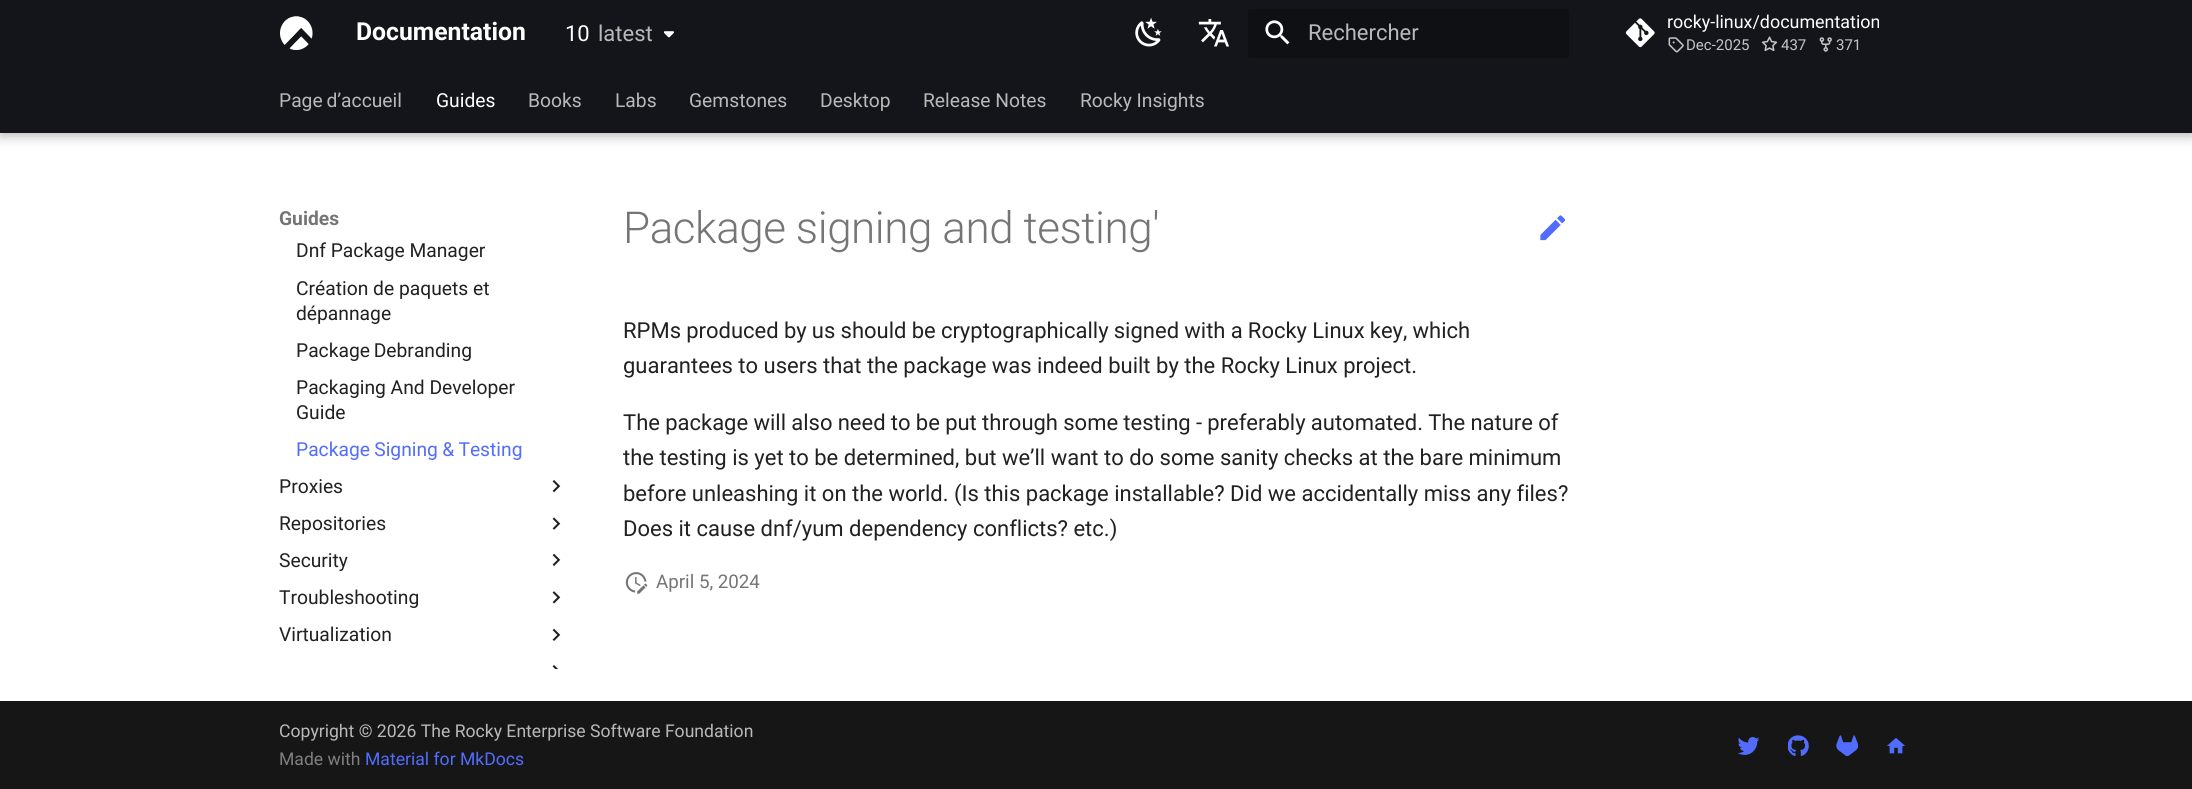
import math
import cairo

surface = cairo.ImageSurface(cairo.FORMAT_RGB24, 2192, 789)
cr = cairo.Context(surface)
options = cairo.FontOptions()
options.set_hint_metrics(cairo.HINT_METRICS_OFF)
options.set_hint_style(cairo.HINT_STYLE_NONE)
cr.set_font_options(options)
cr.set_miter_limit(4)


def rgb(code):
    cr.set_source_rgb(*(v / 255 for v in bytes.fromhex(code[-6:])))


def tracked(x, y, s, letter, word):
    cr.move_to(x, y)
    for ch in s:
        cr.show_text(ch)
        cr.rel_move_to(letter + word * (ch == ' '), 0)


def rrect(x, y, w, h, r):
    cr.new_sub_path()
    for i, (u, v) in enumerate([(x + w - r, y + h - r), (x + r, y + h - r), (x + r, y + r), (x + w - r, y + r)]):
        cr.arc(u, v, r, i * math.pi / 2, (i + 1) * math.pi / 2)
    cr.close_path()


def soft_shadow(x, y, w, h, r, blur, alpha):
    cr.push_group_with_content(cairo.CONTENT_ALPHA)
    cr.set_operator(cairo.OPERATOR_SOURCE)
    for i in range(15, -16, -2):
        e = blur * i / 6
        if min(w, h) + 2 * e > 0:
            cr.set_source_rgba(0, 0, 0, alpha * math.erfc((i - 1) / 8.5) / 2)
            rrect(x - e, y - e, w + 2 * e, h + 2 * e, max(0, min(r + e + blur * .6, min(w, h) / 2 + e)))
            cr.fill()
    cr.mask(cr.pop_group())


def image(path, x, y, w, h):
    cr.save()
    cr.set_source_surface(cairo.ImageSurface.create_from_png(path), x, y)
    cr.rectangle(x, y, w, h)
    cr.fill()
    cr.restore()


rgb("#ffffff")
cr.paint()
rgb("#000000")
soft_shadow(0, 5, 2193, 133, 0, 5.5, 0.2)
soft_shadow(0, 0, 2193, 133, 0, 3, 0.1)
rgb("#14151a")
cr.rectangle(0, 0, 2192, 133)
cr.fill()
image("img/1.png", 280, 16, 33, 34)
image("img/2.png", 664, 31, 10, 7)
image("img/3.png", 1135, 17, 27, 30)
image("img/4.png", 1198, 19, 31, 28)
rgb("#0f1013")
rrect(1248, 9, 321, 49, 2.5)
cr.fill()
image("img/5.png", 1265, 20, 25, 25)
image("img/6.png", 1625, 18, 30, 30)
image("img/7.png", 1668, 37, 16, 16)
image("img/8.png", 1761, 36, 17, 16)
image("img/9.png", 1819, 37, 13, 15)
cr.save()
cr.rectangle(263, 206, 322, 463)
cr.clip()
rgb("#ffffff")
soft_shadow(269, 195, 311, 48, 0, 5.5, 1)
cr.restore()
image("img/10.png", 552, 480, 9, 13)
image("img/11.png", 552, 517, 9, 13)
image("img/12.png", 552, 553, 9, 13)
image("img/13.png", 552, 591, 9, 13)
image("img/12.png", 552, 628, 9, 13)
image("img/14.png", 552, 665, 6, 4)
image("img/15.png", 1540, 215, 26, 26)
image("img/16.png", 625, 572, 23, 22)
rgb("#161616")
cr.rectangle(0, 701, 2192, 88)
cr.fill()
image("img/17.png", 1738, 737, 21, 18)
image("img/18.png", 1788, 735, 21, 21)
image("img/19.png", 1836, 735, 22, 21)
image("img/20.png", 1887, 737, 18, 17)
cr.select_font_face("Roboto", cairo.FONT_SLANT_NORMAL, cairo.FONT_WEIGHT_BOLD)
cr.set_font_size(24.75)
rgb("#ffffff")
cr.move_to(356, 40)
cr.show_text("Documentation")
cr.select_font_face("Roboto")
cr.set_font_size(22)
cr.move_to(565, 41)
cr.show_text("10")
rgb("#b9b9b9")
cr.move_to(598, 41)
cr.show_text("latest")
cr.move_to(1308, 40)
cr.show_text("Rechercher")
cr.set_font_size(17.9)
rgb("#ffffff")
cr.move_to(1667, 28)
cr.show_text("rocky-linux/documentation")
cr.set_font_size(15)
rgb("#c4c5c6")
for x, y, s in [
    (1686, 50, "Dec-2025"),
    (1781, 50, "437"),
    (1836, 50, "371"),
]:
    cr.move_to(x, y)
    cr.show_text(s)
cr.set_font_size(19.25)
rgb("#b9b9b9")
tracked(279, 107, "Page d’accueil", 0, -1)
rgb("#ffffff")
cr.move_to(436, 107)
cr.show_text("Guides")
rgb("#b9b9b9")
for x, y, s in [
    (528, 107, "Books"),
    (615, 107, "Labs"),
    (689, 107, "Gemstones"),
    (820, 107, "Desktop"),
    (923, 107, "Release Notes"),
    (1080, 107, "Rocky Insights"),
]:
    cr.move_to(x, y)
    cr.show_text(s)
cr.select_font_face("Roboto", cairo.FONT_SLANT_NORMAL, cairo.FONT_WEIGHT_BOLD)
rgb("#757575")
cr.move_to(279, 225)
cr.show_text("Guides")
cr.select_font_face("Roboto")
rgb("#212121")
for x, y, s in [
    (296, 257, "Dnf Package Manager"),
    (296, 295, "Création de paquets et"),
    (296, 320, "dépannage"),
]:
    cr.move_to(x, y)
    cr.show_text(s)
tracked(296, 357, "Package Debranding", 0, -1)
cr.move_to(296, 394)
cr.show_text("Packaging And Developer")
cr.move_to(296, 419)
cr.show_text("Guide")
rgb("#526cfe")
tracked(296, 456, "Package Signing & Testing", 0, -0.5)
rgb("#212121")
for x, y, s in [
    (279, 493, "Proxies"),
    (279, 530, "Repositories"),
    (279, 567, "Security"),
    (279, 604, "Troubleshooting"),
    (279, 641, "Virtualization"),
]:
    cr.move_to(x, y)
    cr.show_text(s)
cr.select_font_face("Roboto Light")
cr.set_font_size(44)
rgb("#757575")
tracked(623, 243, "Package signing and testing'", -0.45, 0)
cr.select_font_face("Roboto")
cr.set_font_size(22)
rgb("#212121")
tracked(623, 338, "RPMs produced by us should be cryptographically signed with a Rocky Linux key, which", 0, -0.25)
cr.move_to(623, 373)
cr.show_text("guarantees to users that the package was indeed built by the Rocky Linux project.")
tracked(623, 430, "The package will also need to be put through some testing - preferably automated. The nature of", 0, -0.2)
for x, y, s in [
    (623, 465, "the testing is yet to be determined, but we’ll want to do some sanity checks at the bare minimum"),
    (623, 501, "before unleashing it on the world. (Is this package installable? Did we accidentally miss any files?"),
    (623, 536, "Does it cause dnf/yum dependency conflicts? etc.)"),
]:
    cr.move_to(x, y)
    cr.show_text(s)
cr.set_font_size(18.75)
rgb("#757575")
cr.move_to(656, 588)
cr.show_text("April 5, 2024")
cr.set_font_size(17.6)
rgb("#b9b9b9")
cr.move_to(279, 737)
cr.show_text("Copyright © 2026 The Rocky Enterprise Software Foundation")
rgb("#7f7f7f")
cr.move_to(279, 765)
cr.show_text("Made with")
rgb("#526cfe")
cr.move_to(365, 765)
cr.show_text("Material for MkDocs")
surface.write_to_png("page.png")
